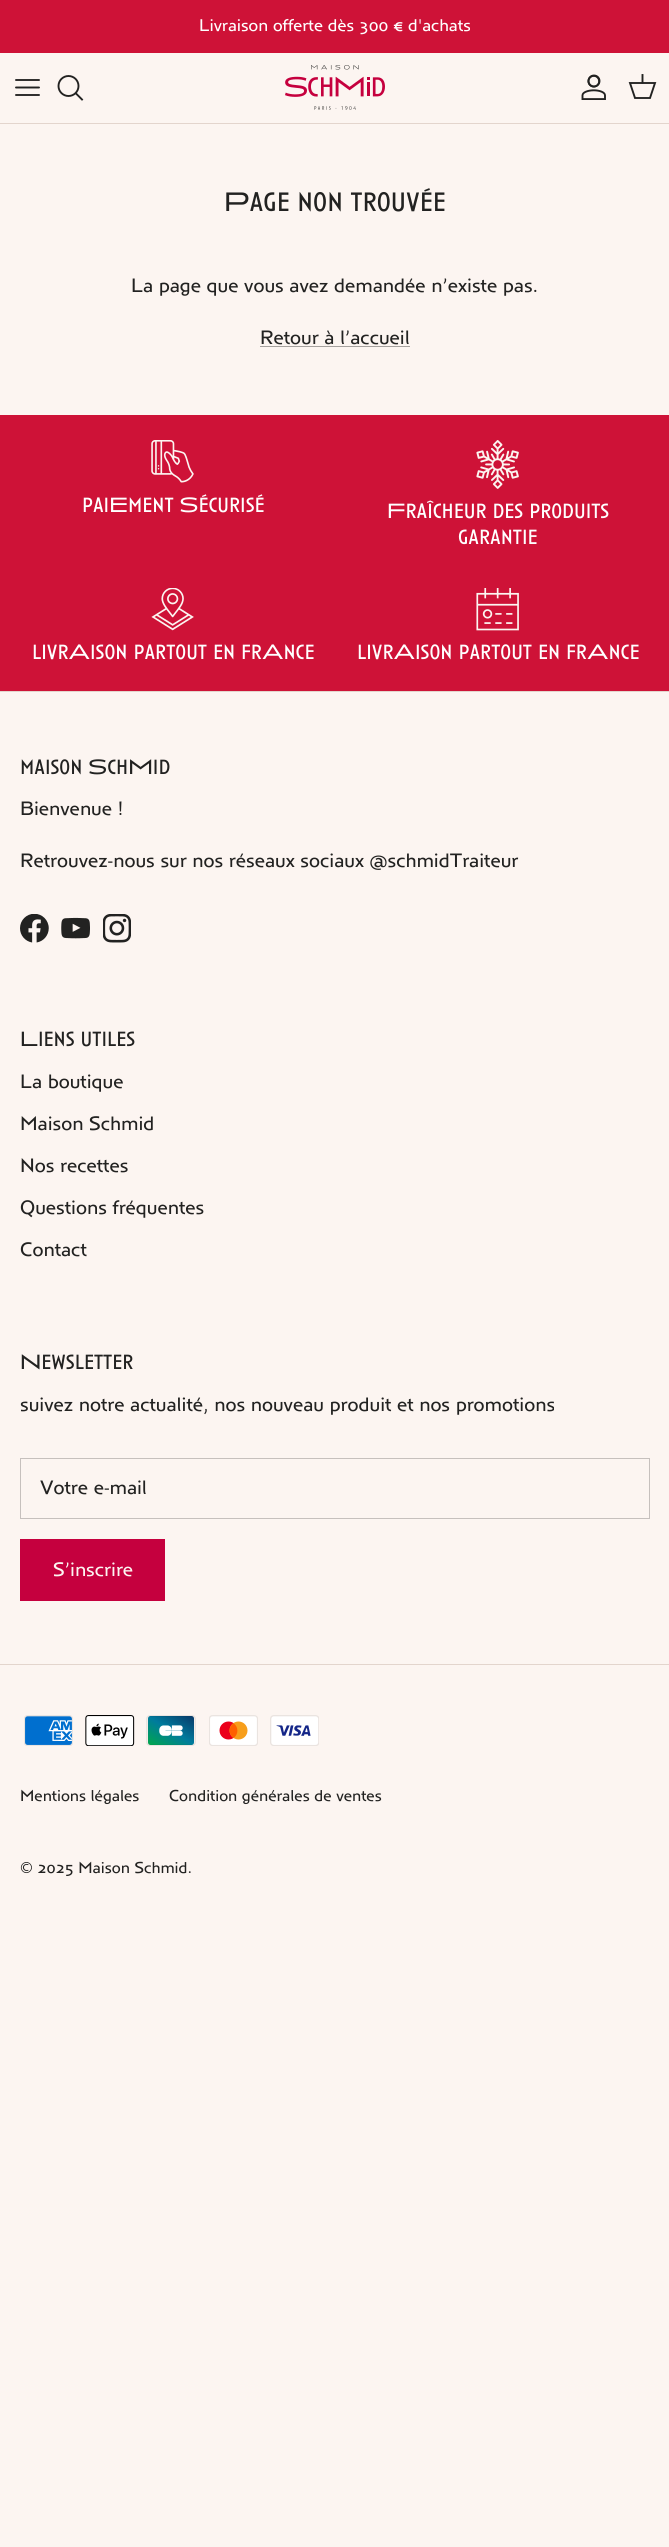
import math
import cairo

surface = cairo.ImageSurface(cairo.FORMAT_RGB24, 669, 2547)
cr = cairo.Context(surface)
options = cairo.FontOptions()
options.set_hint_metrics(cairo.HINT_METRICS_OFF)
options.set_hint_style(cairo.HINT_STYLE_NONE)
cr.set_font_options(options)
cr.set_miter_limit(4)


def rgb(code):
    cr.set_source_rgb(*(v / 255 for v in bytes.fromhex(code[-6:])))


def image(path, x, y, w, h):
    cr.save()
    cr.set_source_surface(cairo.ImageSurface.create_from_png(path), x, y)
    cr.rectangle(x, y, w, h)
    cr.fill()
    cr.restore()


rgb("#fcf5f1")
cr.paint()
rgb("#ce1237")
cr.rectangle(0, 0, 669, 53)
cr.fill()
rgb("#e3d5cd")
cr.rectangle(0, 123, 669, 1)
cr.fill()
cr.new_path()
cr.move_to(16, 87.5)
cr.line_to(39, 87.5)
cr.move_to(16, 80)
cr.line_to(39, 80)
cr.move_to(16, 95)
cr.line_to(39, 95)
rgb("#222221")
cr.set_line_width(1.9)
cr.set_line_cap(cairo.LINE_CAP_ROUND)
cr.set_line_join(cairo.LINE_JOIN_ROUND)
cr.stroke()
cr.arc(68.5, 86, 10, 0, 2 * math.pi)
cr.set_line_cap(cairo.LINE_CAP_BUTT)
cr.set_line_join(cairo.LINE_JOIN_MITER)
cr.stroke()
cr.new_path()
cr.move_to(76, 93.5)
cr.line_to(82, 99.5)
cr.set_line_cap(cairo.LINE_CAP_SQUARE)
cr.stroke()
image("img/1.png", 285, 65, 100, 45)
image("img/2.png", 581, 74, 25, 26)
cr.new_path()
cr.move_to(630, 83)
cr.line_to(655, 83)
cr.line_to(650, 98)
cr.line_to(635, 98)
cr.close_path()
cr.set_line_cap(cairo.LINE_CAP_BUTT)
cr.stroke()
cr.new_path()
cr.move_to(642.5, 82.5)
cr.line_to(642.5, 75)
cr.set_line_cap(cairo.LINE_CAP_SQUARE)
cr.stroke()
rgb("#a5a19e")
cr.rectangle(260, 346, 150, 1)
cr.fill()
rgb("#ce1237")
cr.rectangle(0, 415, 669, 276)
cr.fill()
image("img/3.png", 151, 440, 43, 43)
image("img/4.png", 476, 440, 43, 49)
image("img/5.png", 151, 588, 43, 43)
image("img/6.png", 476, 588, 43, 43)
rgb("#e3d5cd")
cr.rectangle(0, 691, 669, 1)
cr.fill()
image("img/7.png", 20, 914, 29, 29)
image("img/8.png", 61, 917, 29, 22)
image("img/9.png", 103, 914, 28, 29)
cr.rectangle(20.5, 1458.5, 629, 60)
rgb("#c6c0bd")
cr.set_line_width(1)
cr.set_line_cap(cairo.LINE_CAP_BUTT)
cr.stroke()
rgb("#c5003e")
cr.rectangle(20, 1539, 145, 62)
cr.fill()
rgb("#e3d5cd")
cr.rectangle(0, 1664, 669, 1)
cr.fill()
image("img/10.png", 24, 1715, 49, 31)
image("img/11.png", 85, 1715, 50, 31)
image("img/12.png", 146, 1715, 50, 31)
image("img/13.png", 209, 1715, 49, 31)
image("img/14.png", 270, 1715, 49, 31)
cr.select_font_face("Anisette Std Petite")
cr.set_font_size(17.5)
rgb("#ffffff")
cr.move_to(199, 31)
cr.show_text("Livraison offerte dès 300 € d'achats")
cr.select_font_face("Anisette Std")
cr.set_font_size(27.5)
rgb("#222221")
cr.move_to(224, 211)
cr.show_text("Page non trouvée")
cr.select_font_face("Anisette Std Petite")
cr.set_font_size(20)
cr.move_to(131, 292)
cr.show_text("La page que vous avez demandée n’existe pas.")
cr.move_to(260, 344)
cr.show_text("Retour à l’accueil")
cr.select_font_face("Anisette Std")
cr.set_font_size(21.25)
rgb("#ffffff")
for x, y, s in [
    (82, 512, "paiEment Sécurisé"),
    (387, 518, "Fraîcheur des produits"),
    (458, 544, "garantie"),
    (32, 659, "livrAison partout en frAnce"),
    (357, 659, "livrAison partout en frAnce"),
]:
    cr.move_to(x, y)
    cr.show_text(s)
rgb("#222221")
cr.move_to(20, 774)
cr.show_text("maison SchMid")
cr.select_font_face("Anisette Std Petite")
cr.set_font_size(20)
cr.move_to(20, 815)
cr.show_text("Bienvenue !")
cr.move_to(20, 867)
cr.show_text("Retrouvez-nous sur nos réseaux sociaux @schmidTraiteur")
cr.select_font_face("Anisette Std")
cr.set_font_size(21.25)
cr.move_to(20, 1046)
cr.show_text("Liens utiles")
cr.select_font_face("Anisette Std Petite")
cr.set_font_size(20)
for x, y, s in [
    (20, 1088, "La boutique"),
    (20, 1130, "Maison Schmid"),
    (20, 1172, "Nos recettes"),
    (20, 1214, "Questions fréquentes"),
    (20, 1256, "Contact"),
]:
    cr.move_to(x, y)
    cr.show_text(s)
cr.select_font_face("Anisette Std")
cr.set_font_size(21.25)
cr.move_to(20, 1369)
cr.show_text("Newsletter")
cr.select_font_face("Anisette Std Petite")
cr.set_font_size(20)
cr.move_to(20, 1411)
cr.show_text("suivez notre actualité, nos nouveau produit et nos promotions")
cr.move_to(40, 1494)
cr.show_text("Votre e-mail")
rgb("#fcf5f1")
cr.move_to(53, 1576)
cr.show_text("S’inscrire")
cr.set_font_size(16.25)
rgb("#222221")
for x, y, s in [
    (20, 1801, "Mentions légales"),
    (169, 1801, "Condition générales de ventes"),
    (20, 1873, "© 2025 Maison Schmid."),
]:
    cr.move_to(x, y)
    cr.show_text(s)
surface.write_to_png("page.png")
